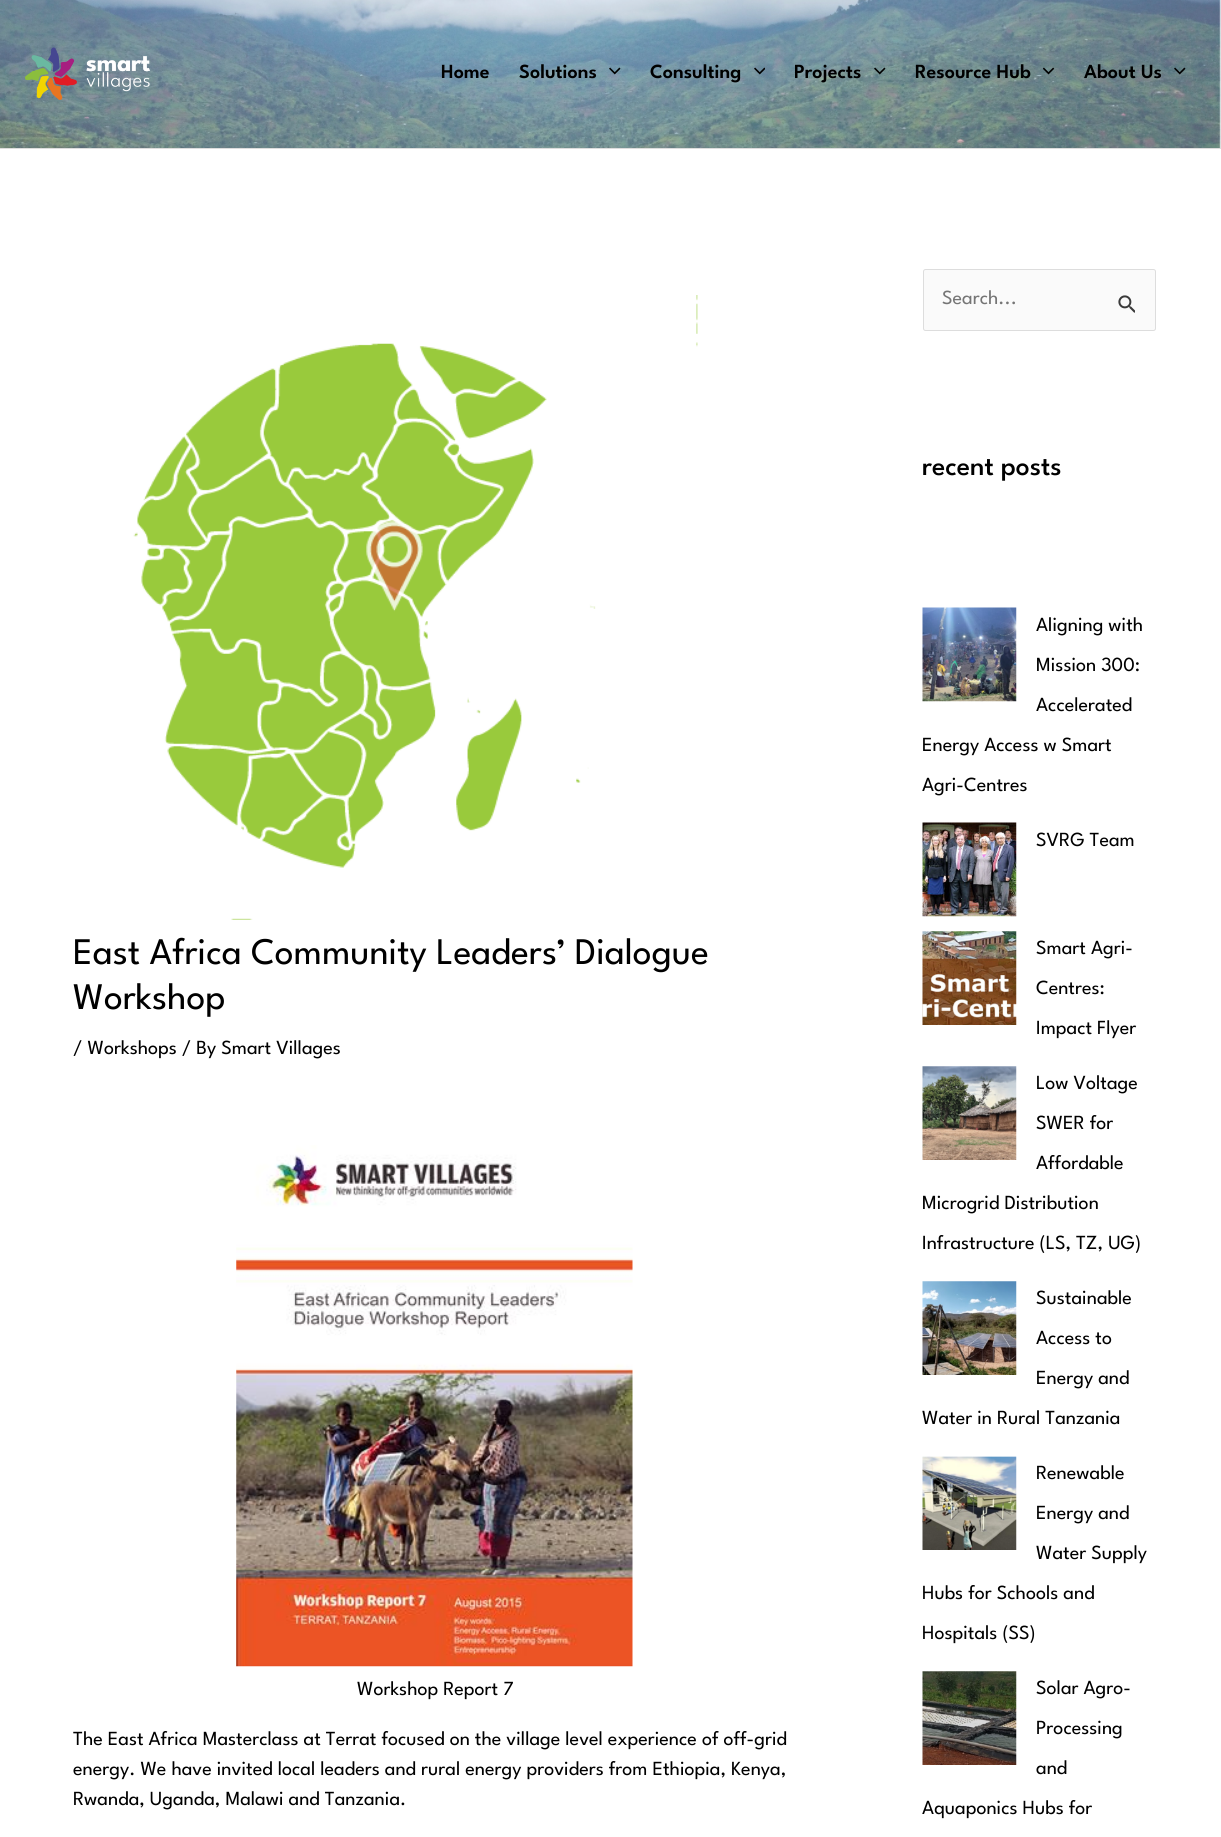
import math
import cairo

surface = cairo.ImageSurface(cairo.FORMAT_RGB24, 1221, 1837)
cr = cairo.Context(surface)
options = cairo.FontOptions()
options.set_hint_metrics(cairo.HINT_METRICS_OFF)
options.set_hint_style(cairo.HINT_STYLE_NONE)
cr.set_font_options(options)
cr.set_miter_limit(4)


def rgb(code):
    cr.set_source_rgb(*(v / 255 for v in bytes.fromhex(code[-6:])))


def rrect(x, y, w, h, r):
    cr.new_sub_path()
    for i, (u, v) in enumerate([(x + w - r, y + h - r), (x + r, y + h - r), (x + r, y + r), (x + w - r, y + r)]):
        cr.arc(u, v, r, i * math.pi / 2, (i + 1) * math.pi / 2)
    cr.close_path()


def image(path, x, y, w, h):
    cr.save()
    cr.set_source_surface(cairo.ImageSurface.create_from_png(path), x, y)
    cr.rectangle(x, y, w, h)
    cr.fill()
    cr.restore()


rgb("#ffffff")
cr.paint()
image("img/1.png", 0, 0, 1221, 148)
rgb("#dddddd")
cr.rectangle(0, 148, 1221, 1)
cr.fill()
image("img/2.png", 25, 47, 125, 53)
image("img/3.png", 609, 67, 12, 8)
image("img/4.png", 754, 67, 11, 8)
image("img/5.png", 874, 67, 12, 8)
image("img/6.png", 1043, 67, 12, 8)
image("img/7.png", 1174, 67, 12, 8)
image("img/8.png", 133, 295, 565, 625)
image("img/9.png", 236, 1145, 397, 522)
rgb("#fafafa")
rrect(923.5, 269.5, 232, 61, 2)
cr.fill_preserve()
rgb("#dddddd")
cr.set_line_width(1)
cr.stroke()
image("img/10.png", 1118, 295, 17, 18)
image("img/11.png", 922, 607, 95, 95)
image("img/12.png", 922, 822, 95, 95)
image("img/13.png", 922, 931, 95, 94)
image("img/14.png", 922, 1066, 95, 94)
image("img/15.png", 922, 1281, 95, 94)
image("img/16.png", 922, 1456, 95, 94)
image("img/17.png", 922, 1671, 95, 94)
cr.select_font_face("League Spartan SemiBold")
cr.set_font_size(20)
rgb("#000000")
for x, y, s in [
    (441, 78, "Home"),
    (519, 78, "Solutions"),
    (650, 78, "Consulting"),
    (794, 78, "Projects"),
    (915, 78, "Resource Hub"),
    (1084, 78, "About Us"),
]:
    cr.move_to(x, y)
    cr.show_text(s)
cr.select_font_face("League Spartan")
cr.set_font_size(37.5)
cr.move_to(73, 964)
cr.show_text("East Africa Community Leaders’ Dialogue")
cr.move_to(73, 1009)
cr.show_text("Workshop")
cr.set_font_size(20)
for x, y, s in [
    (73, 1054, "/ Workshops / By Smart Villages"),
    (357, 1695, "Workshop Report 7"),
    (73, 1745, "The East Africa Masterclass at Terrat focused on the village level experience of off-grid"),
    (73, 1775, "energy. We have invited local leaders and rural energy providers from Ethiopia, Kenya,"),
    (73, 1805, "Rwanda, Uganda, Malawi and Tanzania."),
]:
    cr.move_to(x, y)
    cr.show_text(s)
rgb("#757575")
cr.move_to(942, 304)
cr.show_text("Search...")
cr.select_font_face("League Spartan Medium")
cr.set_font_size(27.5)
rgb("#000000")
cr.move_to(922, 475)
cr.show_text("recent posts")
cr.select_font_face("League Spartan")
cr.set_font_size(20)
for x, y, s in [
    (1036, 631, "Aligning with"),
    (1036, 671, "Mission 300:"),
    (1036, 711, "Accelerated"),
    (922, 751, "Energy Access w Smart"),
    (922, 791, "Agri-Centres"),
    (1036, 846, "SVRG Team"),
    (1036, 954, "Smart Agri-"),
    (1036, 994, "Centres:"),
    (1036, 1034, "Impact Flyer"),
    (1036, 1089, "Low Voltage"),
    (1036, 1129, "SWER for"),
    (1036, 1169, "Affordable"),
    (922, 1209, "Microgrid Distribution"),
    (922, 1249, "Infrastructure (LS, TZ, UG)"),
    (1036, 1304, "Sustainable"),
    (1036, 1344, "Access to"),
    (1036, 1384, "Energy and"),
    (922, 1424, "Water in Rural Tanzania"),
    (1036, 1479, "Renewable"),
    (1036, 1519, "Energy and"),
    (1036, 1559, "Water Supply"),
    (922, 1599, "Hubs for Schools and"),
    (922, 1639, "Hospitals (SS)"),
    (1036, 1694, "Solar Agro-"),
    (1036, 1734, "Processing"),
    (1036, 1774, "and"),
    (922, 1814, "Aquaponics Hubs for"),
]:
    cr.move_to(x, y)
    cr.show_text(s)
surface.write_to_png("page.png")
